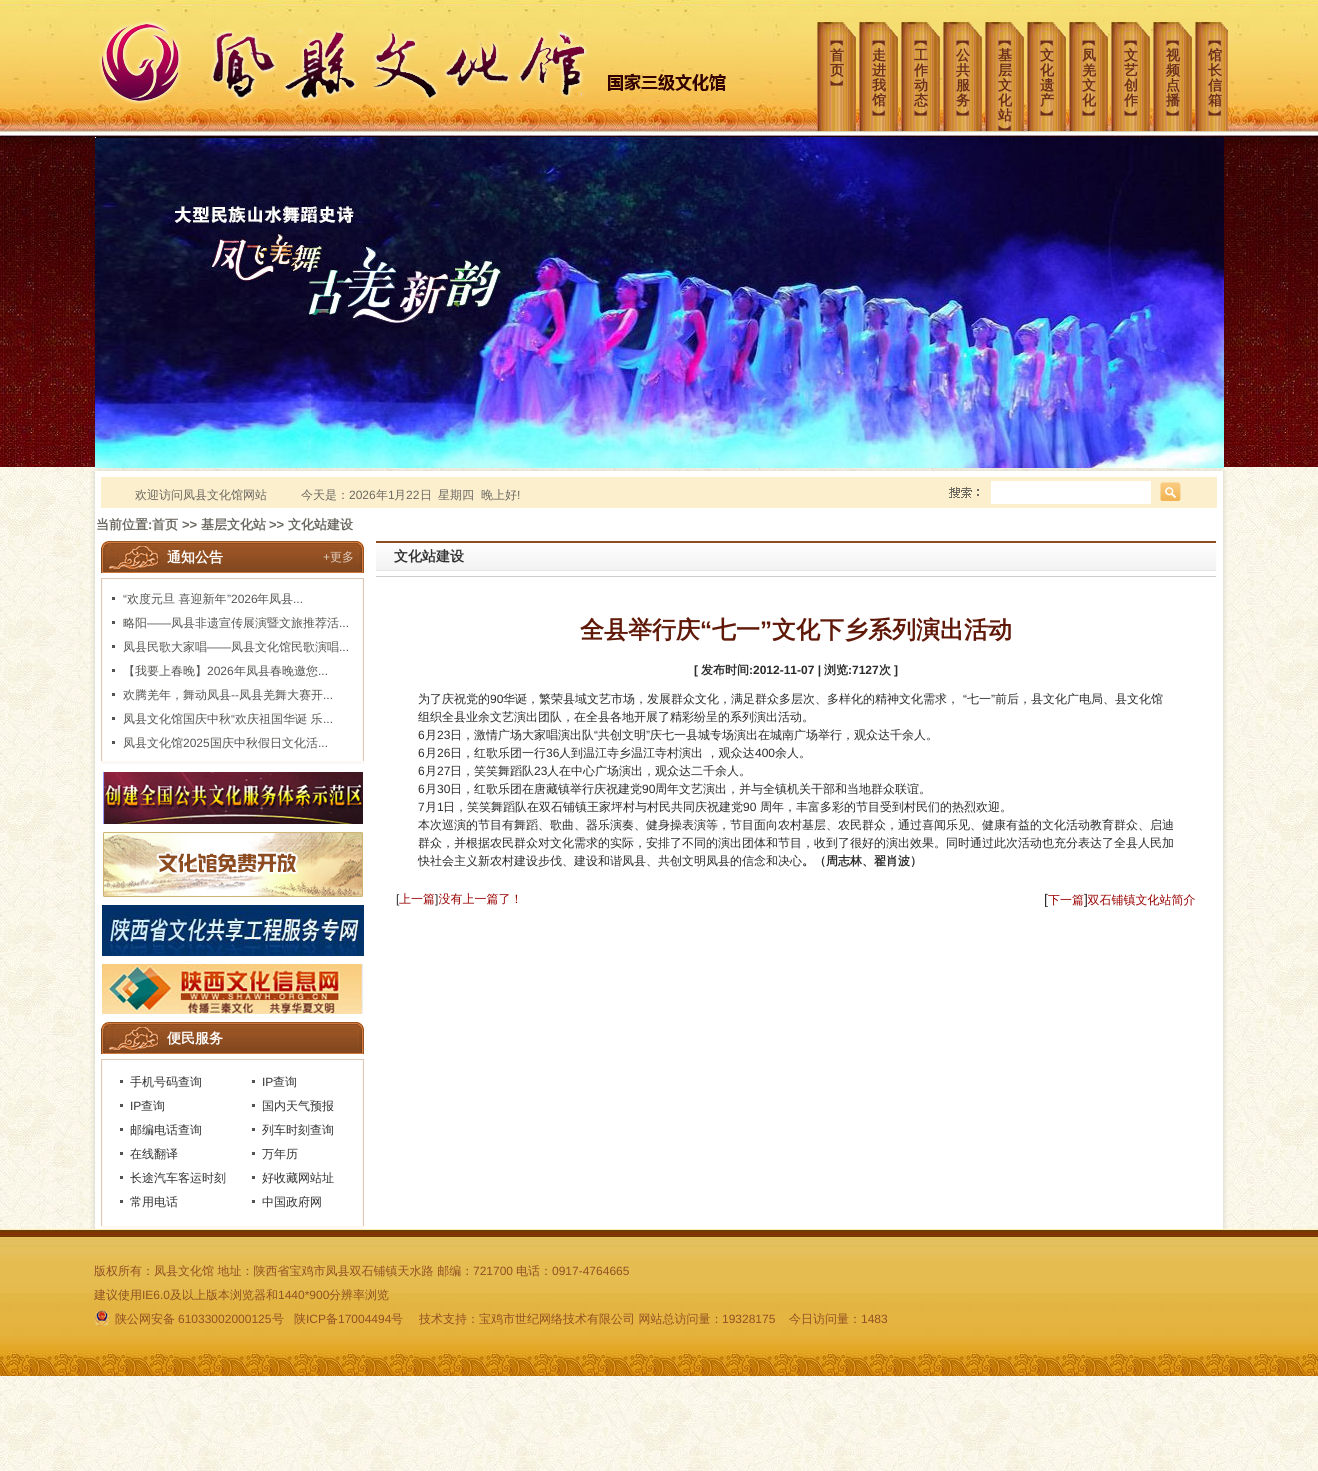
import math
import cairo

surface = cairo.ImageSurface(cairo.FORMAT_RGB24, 1318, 1471)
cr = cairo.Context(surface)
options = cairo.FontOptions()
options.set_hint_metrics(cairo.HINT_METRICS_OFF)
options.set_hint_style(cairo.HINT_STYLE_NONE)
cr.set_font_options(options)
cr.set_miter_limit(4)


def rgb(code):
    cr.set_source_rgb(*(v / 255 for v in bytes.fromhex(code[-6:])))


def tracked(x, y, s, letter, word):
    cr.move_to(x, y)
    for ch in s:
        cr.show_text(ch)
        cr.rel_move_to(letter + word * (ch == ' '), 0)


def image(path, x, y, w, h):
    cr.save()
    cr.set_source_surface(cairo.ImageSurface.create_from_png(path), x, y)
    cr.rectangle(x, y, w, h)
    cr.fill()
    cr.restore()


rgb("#ffffff")
cr.paint()
image("img/1.png", 0, 467, 1318, 1004)
image("img/2.png", 0, 0, 1318, 467)
image("img/3.png", 90, 0, 636, 104)
image("img/4.png", 817, 22, 39, 110)
image("img/4.png", 859, 22, 39, 110)
image("img/4.png", 901, 22, 39, 110)
image("img/4.png", 943, 22, 39, 110)
image("img/4.png", 985, 22, 39, 110)
image("img/4.png", 1027, 22, 39, 110)
image("img/4.png", 1069, 22, 39, 110)
image("img/4.png", 1111, 22, 39, 110)
image("img/4.png", 1153, 22, 39, 110)
image("img/5.png", 1195, 22, 33, 110)
image("img/6.png", 95, 137, 1129, 331)
image("img/7.png", 91, 468, 1137, 3)
image("img/8.png", 90, 471, 1138, 758)
image("img/9.png", 101, 477, 1116, 31)
image("img/10.png", 101, 541, 263, 32)
rgb("#e0c8b7")
cr.rectangle(101, 578, 263, 1)
cr.fill()
image("img/11.png", 101, 579, 263, 182)
for x, y, w, h, color in [
    (112, 597, 3, 3, "#565151"),
    (112, 621, 3, 3, "#565151"),
    (112, 645, 3, 3, "#565151"),
    (112, 669, 3, 3, "#565151"),
    (112, 693, 3, 3, "#565151"),
    (112, 717, 3, 3, "#565151"),
    (112, 741, 3, 3, "#565151"),
    (101, 761, 263, 3, "#fbf8f5"),
]:
    rgb(color)
    cr.rectangle(x, y, w, h)
    cr.fill()
image("img/12.png", 103, 772, 260, 52)
image("img/13.png", 103, 832, 260, 65)
image("img/14.png", 102, 905, 262, 51)
image("img/15.png", 102, 964, 261, 50)
image("img/10.png", 101, 1022, 263, 32)
rgb("#e0c8b7")
cr.rectangle(101, 1059, 263, 1)
cr.fill()
image("img/16.png", 101, 1060, 263, 166)
for x, y, w, h, color in [
    (120, 1080, 3, 3, "#565151"),
    (252, 1080, 3, 3, "#565151"),
    (120, 1104, 3, 3, "#565151"),
    (252, 1104, 3, 3, "#565151"),
    (120, 1128, 3, 3, "#565151"),
    (252, 1128, 3, 3, "#565151"),
    (120, 1152, 3, 3, "#565151"),
    (252, 1152, 3, 3, "#565151"),
    (120, 1176, 3, 3, "#565151"),
    (252, 1176, 3, 3, "#565151"),
    (120, 1200, 3, 3, "#565151"),
    (252, 1200, 3, 3, "#565151"),
    (101, 1226, 263, 3, "#fbf8f5"),
]:
    rgb(color)
    cr.rectangle(x, y, w, h)
    cr.fill()
image("img/17.png", 376, 541, 840, 30)
image("img/18.png", 376, 576, 840, 1)
image("img/19.png", 0, 1229, 1318, 147)
image("img/20.png", 94, 1310, 16, 16)
cr.select_font_face("WenQuanYi Zen Hei", cairo.FONT_SLANT_NORMAL, cairo.FONT_WEIGHT_BOLD)
cr.set_font_size(14)
rgb("#6b2e1a")
for x, y, s in [
    (830, 45, "︻"),
    (830, 60, "首"),
    (830, 75, "页"),
    (830, 90, "︼"),
    (872, 45, "︻"),
    (872, 60, "走"),
    (872, 75, "进"),
    (872, 90, "我"),
    (872, 105, "馆"),
    (872, 120, "︼"),
    (914, 45, "︻"),
    (914, 60, "工"),
    (914, 75, "作"),
    (914, 90, "动"),
    (914, 105, "态"),
    (914, 120, "︼"),
    (956, 45, "︻"),
    (956, 60, "公"),
    (956, 75, "共"),
    (956, 90, "服"),
    (956, 105, "务"),
    (956, 120, "︼"),
    (998, 45, "︻"),
    (998, 60, "基"),
    (998, 75, "层"),
    (998, 90, "文"),
    (998, 105, "化"),
    (998, 120, "站"),
    (998, 135, "︼"),
    (1040, 45, "︻"),
    (1040, 60, "文"),
    (1040, 75, "化"),
    (1040, 90, "遗"),
    (1040, 105, "产"),
    (1040, 120, "︼"),
    (1082, 45, "︻"),
    (1082, 60, "凤"),
    (1082, 75, "羌"),
    (1082, 90, "文"),
    (1082, 105, "化"),
    (1082, 120, "︼"),
    (1124, 45, "︻"),
    (1124, 60, "文"),
    (1124, 75, "艺"),
    (1124, 90, "创"),
    (1124, 105, "作"),
    (1124, 120, "︼"),
    (1166, 45, "︻"),
    (1166, 60, "视"),
    (1166, 75, "频"),
    (1166, 90, "点"),
    (1166, 105, "播"),
    (1166, 120, "︼"),
    (1208, 45, "︻"),
    (1208, 60, "馆"),
    (1208, 75, "长"),
    (1208, 90, "信"),
    (1208, 105, "箱"),
    (1208, 120, "︼"),
]:
    tracked(x, y, s, 12, 0)
cr.select_font_face("WenQuanYi Zen Hei Medium")
cr.set_font_size(12)
rgb("#6b6860")
cr.move_to(135, 499)
cr.show_text("欢迎访问凤县文化馆网站")
cr.move_to(301, 499)
cr.show_text("今天是：")
cr.select_font_face("Liberation Sans")
cr.move_to(349, 499)
cr.show_text("2026")
cr.select_font_face("WenQuanYi Zen Hei Medium")
cr.move_to(376, 499)
cr.show_text("年")
cr.select_font_face("Liberation Sans")
cr.move_to(388, 499)
cr.show_text("1")
cr.select_font_face("WenQuanYi Zen Hei Medium")
cr.move_to(394, 499)
cr.show_text("月")
cr.select_font_face("Liberation Sans")
cr.move_to(406, 499)
cr.show_text("22")
cr.select_font_face("WenQuanYi Zen Hei Medium")
for x, y, s in [
    (420, 499, "日"),
    (438, 499, "星期四"),
    (481, 499, "晚上好"),
]:
    cr.move_to(x, y)
    cr.show_text(s)
cr.select_font_face("Liberation Sans")
cr.move_to(517, 499)
cr.show_text("!")
cr.select_font_face("WenQuanYi Zen Hei", cairo.FONT_SLANT_NORMAL, cairo.FONT_WEIGHT_BOLD)
cr.set_font_size(13)
cr.move_to(96, 529)
cr.show_text("当前位置")
cr.select_font_face("Liberation Sans", cairo.FONT_SLANT_NORMAL, cairo.FONT_WEIGHT_BOLD)
cr.move_to(148, 529)
cr.show_text(":")
cr.select_font_face("WenQuanYi Zen Hei", cairo.FONT_SLANT_NORMAL, cairo.FONT_WEIGHT_BOLD)
cr.move_to(152, 529)
cr.show_text("首页")
cr.select_font_face("Liberation Sans", cairo.FONT_SLANT_NORMAL, cairo.FONT_WEIGHT_BOLD)
cr.move_to(182, 529)
cr.show_text(">>")
cr.select_font_face("WenQuanYi Zen Hei", cairo.FONT_SLANT_NORMAL, cairo.FONT_WEIGHT_BOLD)
cr.move_to(201, 529)
cr.show_text("基层文化站")
cr.select_font_face("Liberation Sans", cairo.FONT_SLANT_NORMAL, cairo.FONT_WEIGHT_BOLD)
cr.move_to(269, 529)
cr.show_text(">>")
cr.select_font_face("WenQuanYi Zen Hei", cairo.FONT_SLANT_NORMAL, cairo.FONT_WEIGHT_BOLD)
cr.move_to(288, 529)
cr.show_text("文化站建设")
cr.set_font_size(14)
rgb("#ffffff")
cr.move_to(167, 562)
cr.show_text("通知公告")
cr.select_font_face("Liberation Sans")
cr.set_font_size(12)
rgb("#e0ccbe")
cr.move_to(323, 561)
cr.show_text("+")
cr.select_font_face("WenQuanYi Zen Hei Medium")
cr.move_to(330, 561)
cr.show_text("更多")
cr.select_font_face("Liberation Sans")
rgb("#565553")
cr.move_to(123, 603)
cr.show_text("“")
cr.select_font_face("WenQuanYi Zen Hei Medium")
cr.move_to(127, 603)
cr.show_text("欢度元旦 喜迎新年")
cr.select_font_face("Liberation Sans")
cr.move_to(227, 603)
cr.show_text("”2026")
cr.select_font_face("WenQuanYi Zen Hei Medium")
cr.move_to(257, 603)
cr.show_text("年凤县")
cr.select_font_face("Liberation Sans")
cr.move_to(293, 603)
cr.show_text("...")
cr.select_font_face("WenQuanYi Zen Hei Medium")
cr.move_to(123, 627)
cr.show_text("略阳")
cr.select_font_face("Liberation Sans")
cr.move_to(147, 627)
cr.show_text("——")
cr.select_font_face("WenQuanYi Zen Hei Medium")
cr.move_to(171, 627)
cr.show_text("凤县非遗宣传展演暨文旅推荐活")
cr.select_font_face("Liberation Sans")
cr.move_to(339, 627)
cr.show_text("...")
cr.select_font_face("WenQuanYi Zen Hei Medium")
cr.move_to(123, 651)
cr.show_text("凤县民歌大家唱")
cr.select_font_face("Liberation Sans")
cr.move_to(207, 651)
cr.show_text("——")
cr.select_font_face("WenQuanYi Zen Hei Medium")
cr.move_to(231, 651)
cr.show_text("凤县文化馆民歌演唱")
cr.select_font_face("Liberation Sans")
cr.move_to(339, 651)
cr.show_text("...")
cr.select_font_face("WenQuanYi Zen Hei Medium")
cr.move_to(123, 675)
cr.show_text("【我要上春晚】")
cr.select_font_face("Liberation Sans")
cr.move_to(207, 675)
cr.show_text("2026")
cr.select_font_face("WenQuanYi Zen Hei Medium")
cr.move_to(234, 675)
cr.show_text("年凤县春晚邀您")
cr.select_font_face("Liberation Sans")
cr.move_to(318, 675)
cr.show_text("...")
cr.select_font_face("WenQuanYi Zen Hei Medium")
cr.move_to(123, 699)
cr.show_text("欢腾羌年，舞动凤县")
cr.select_font_face("Liberation Sans")
cr.move_to(231, 699)
cr.show_text("--")
cr.select_font_face("WenQuanYi Zen Hei Medium")
cr.move_to(239, 699)
cr.show_text("凤县羌舞大赛开")
cr.select_font_face("Liberation Sans")
cr.move_to(323, 699)
cr.show_text("...")
cr.select_font_face("WenQuanYi Zen Hei Medium")
cr.move_to(123, 723)
cr.show_text("凤县文化馆国庆中秋")
cr.select_font_face("Liberation Sans")
cr.move_to(231, 723)
cr.show_text("“")
cr.select_font_face("WenQuanYi Zen Hei Medium")
cr.move_to(235, 723)
cr.show_text("欢庆祖国华诞 乐")
cr.select_font_face("Liberation Sans")
cr.move_to(323, 723)
cr.show_text("...")
cr.select_font_face("WenQuanYi Zen Hei Medium")
cr.move_to(123, 747)
cr.show_text("凤县文化馆")
cr.select_font_face("Liberation Sans")
cr.move_to(183, 747)
cr.show_text("2025")
cr.select_font_face("WenQuanYi Zen Hei Medium")
cr.move_to(210, 747)
cr.show_text("国庆中秋假日文化活")
cr.select_font_face("Liberation Sans")
cr.move_to(318, 747)
cr.show_text("...")
cr.select_font_face("WenQuanYi Zen Hei", cairo.FONT_SLANT_NORMAL, cairo.FONT_WEIGHT_BOLD)
cr.set_font_size(14)
rgb("#ffffff")
cr.move_to(167, 1043)
cr.show_text("便民服务")
cr.select_font_face("WenQuanYi Zen Hei Medium")
cr.set_font_size(12)
rgb("#333333")
cr.move_to(130, 1086)
cr.show_text("手机号码查询")
cr.select_font_face("Liberation Sans")
cr.move_to(262, 1086)
cr.show_text("IP")
cr.select_font_face("WenQuanYi Zen Hei Medium")
cr.move_to(273, 1086)
cr.show_text("查询")
cr.select_font_face("Liberation Sans")
cr.move_to(130, 1110)
cr.show_text("IP")
cr.select_font_face("WenQuanYi Zen Hei Medium")
for x, y, s in [
    (141, 1110, "查询"),
    (262, 1110, "国内天气预报"),
    (130, 1134, "邮编电话查询"),
    (262, 1134, "列车时刻查询"),
    (130, 1158, "在线翻译"),
    (262, 1158, "万年历"),
    (130, 1182, "长途汽车客运时刻"),
    (262, 1182, "好收藏网站址"),
    (130, 1206, "常用电话"),
    (262, 1206, "中国政府网"),
]:
    cr.move_to(x, y)
    cr.show_text(s)
cr.select_font_face("WenQuanYi Zen Hei", cairo.FONT_SLANT_NORMAL, cairo.FONT_WEIGHT_BOLD)
cr.set_font_size(14)
cr.move_to(394, 561)
cr.show_text("文化站建设")
cr.set_font_size(24)
rgb("#601908")
cr.move_to(580, 638)
cr.show_text("全县举行庆")
cr.select_font_face("Liberation Sans", cairo.FONT_SLANT_NORMAL, cairo.FONT_WEIGHT_BOLD)
cr.move_to(700, 638)
cr.show_text("“")
cr.select_font_face("WenQuanYi Zen Hei", cairo.FONT_SLANT_NORMAL, cairo.FONT_WEIGHT_BOLD)
cr.move_to(712, 638)
cr.show_text("七一")
cr.select_font_face("Liberation Sans", cairo.FONT_SLANT_NORMAL, cairo.FONT_WEIGHT_BOLD)
cr.move_to(760, 638)
cr.show_text("”")
cr.select_font_face("WenQuanYi Zen Hei", cairo.FONT_SLANT_NORMAL, cairo.FONT_WEIGHT_BOLD)
cr.move_to(772, 638)
cr.show_text("文化下乡系列演出活动")
cr.select_font_face("Liberation Sans", cairo.FONT_SLANT_NORMAL, cairo.FONT_WEIGHT_BOLD)
cr.set_font_size(12)
rgb("#2b2b2b")
cr.move_to(694, 674)
cr.show_text("[")
cr.select_font_face("WenQuanYi Zen Hei", cairo.FONT_SLANT_NORMAL, cairo.FONT_WEIGHT_BOLD)
cr.move_to(701, 674)
cr.show_text("发布时间")
cr.select_font_face("Liberation Sans", cairo.FONT_SLANT_NORMAL, cairo.FONT_WEIGHT_BOLD)
cr.move_to(749, 674)
cr.show_text(":2012-11-07 |")
cr.select_font_face("WenQuanYi Zen Hei", cairo.FONT_SLANT_NORMAL, cairo.FONT_WEIGHT_BOLD)
cr.move_to(824, 674)
cr.show_text("浏览")
cr.select_font_face("Liberation Sans", cairo.FONT_SLANT_NORMAL, cairo.FONT_WEIGHT_BOLD)
cr.move_to(848, 674)
cr.show_text(":7127")
cr.select_font_face("WenQuanYi Zen Hei", cairo.FONT_SLANT_NORMAL, cairo.FONT_WEIGHT_BOLD)
cr.move_to(879, 674)
cr.show_text("次")
cr.select_font_face("Liberation Sans", cairo.FONT_SLANT_NORMAL, cairo.FONT_WEIGHT_BOLD)
cr.move_to(894, 674)
cr.show_text("]")
cr.select_font_face("WenQuanYi Zen Hei Medium")
cr.move_to(418, 703)
cr.show_text("为了庆祝党的")
cr.select_font_face("Liberation Sans")
cr.move_to(490, 703)
cr.show_text("90")
cr.select_font_face("WenQuanYi Zen Hei Medium")
cr.move_to(503, 703)
cr.show_text("华诞，繁荣县域文艺市场，发展群众文化，满足群众多层次、多样化的精神文化需求，")
cr.select_font_face("Liberation Sans")
cr.move_to(963, 703)
cr.show_text("“")
cr.select_font_face("WenQuanYi Zen Hei Medium")
cr.move_to(967, 703)
cr.show_text("七一")
cr.select_font_face("Liberation Sans")
cr.move_to(991, 703)
cr.show_text("”")
cr.select_font_face("WenQuanYi Zen Hei Medium")
cr.move_to(995, 703)
cr.show_text("前后，县文化广电局、县文化馆")
cr.move_to(418, 721)
cr.show_text("组织全县业余文艺演出团队，在全县各地开展了精彩纷呈的系列演出活动。")
cr.select_font_face("Liberation Sans")
cr.move_to(418, 739)
cr.show_text("6")
cr.select_font_face("WenQuanYi Zen Hei Medium")
cr.move_to(425, 739)
cr.show_text("月")
cr.select_font_face("Liberation Sans")
cr.move_to(437, 739)
cr.show_text("23")
cr.select_font_face("WenQuanYi Zen Hei Medium")
cr.move_to(450, 739)
cr.show_text("日，激情广场大家唱演出队")
cr.select_font_face("Liberation Sans")
cr.move_to(594, 739)
cr.show_text("“")
cr.select_font_face("WenQuanYi Zen Hei Medium")
cr.move_to(598, 739)
cr.show_text("共创文明")
cr.select_font_face("Liberation Sans")
cr.move_to(646, 739)
cr.show_text("”")
cr.select_font_face("WenQuanYi Zen Hei Medium")
cr.move_to(650, 739)
cr.show_text("庆七一县城专场演出在城南广场举行，观众达千余人。")
cr.select_font_face("Liberation Sans")
cr.move_to(418, 757)
cr.show_text("6")
cr.select_font_face("WenQuanYi Zen Hei Medium")
cr.move_to(425, 757)
cr.show_text("月")
cr.select_font_face("Liberation Sans")
cr.move_to(437, 757)
cr.show_text("26")
cr.select_font_face("WenQuanYi Zen Hei Medium")
cr.move_to(450, 757)
cr.show_text("日，红歌乐团一行")
cr.select_font_face("Liberation Sans")
cr.move_to(546, 757)
cr.show_text("36")
cr.select_font_face("WenQuanYi Zen Hei Medium")
cr.move_to(559, 757)
cr.show_text("人到温江寺乡温江寺村演出 ，观众达")
cr.select_font_face("Liberation Sans")
cr.move_to(755, 757)
cr.show_text("400")
cr.select_font_face("WenQuanYi Zen Hei Medium")
cr.move_to(775, 757)
cr.show_text("余人。")
cr.select_font_face("Liberation Sans")
cr.move_to(418, 775)
cr.show_text("6")
cr.select_font_face("WenQuanYi Zen Hei Medium")
cr.move_to(425, 775)
cr.show_text("月")
cr.select_font_face("Liberation Sans")
cr.move_to(437, 775)
cr.show_text("27")
cr.select_font_face("WenQuanYi Zen Hei Medium")
cr.move_to(450, 775)
cr.show_text("日，笑笑舞蹈队")
cr.select_font_face("Liberation Sans")
cr.move_to(534, 775)
cr.show_text("23")
cr.select_font_face("WenQuanYi Zen Hei Medium")
cr.move_to(547, 775)
cr.show_text("人在中心广场演出，观众达二千余人。")
cr.select_font_face("Liberation Sans")
cr.move_to(418, 793)
cr.show_text("6")
cr.select_font_face("WenQuanYi Zen Hei Medium")
cr.move_to(425, 793)
cr.show_text("月")
cr.select_font_face("Liberation Sans")
cr.move_to(437, 793)
cr.show_text("30")
cr.select_font_face("WenQuanYi Zen Hei Medium")
cr.move_to(450, 793)
cr.show_text("日，红歌乐团在唐藏镇举行庆祝建党")
cr.select_font_face("Liberation Sans")
cr.move_to(642, 793)
cr.show_text("90")
cr.select_font_face("WenQuanYi Zen Hei Medium")
cr.move_to(655, 793)
cr.show_text("周年文艺演出，并与全镇机关干部和当地群众联谊。")
cr.select_font_face("Liberation Sans")
cr.move_to(418, 811)
cr.show_text("7")
cr.select_font_face("WenQuanYi Zen Hei Medium")
cr.move_to(425, 811)
cr.show_text("月")
cr.select_font_face("Liberation Sans")
cr.move_to(437, 811)
cr.show_text("1")
cr.select_font_face("WenQuanYi Zen Hei Medium")
cr.move_to(443, 811)
cr.show_text("日，笑笑舞蹈队在双石铺镇王家坪村与村民共同庆祝建党")
cr.select_font_face("Liberation Sans")
cr.move_to(743, 811)
cr.show_text("90")
cr.select_font_face("WenQuanYi Zen Hei Medium")
for x, y, s in [
    (760, 811, "周年，丰富多彩的节目受到村民们的热烈欢迎。"),
    (418, 829, "本次巡演的节目有舞蹈、歌曲、器乐演奏、健身操表演等，节目面向农村基层、农民群众，通过喜闻乐见、健康有益的文化活动教育群众、启迪"),
    (418, 847, "群众，并根据农民群众对文化需求的实际，安排了不同的演出团体和节目，收到了很好的演出效果。同时通过此次活动也充分表达了全县人民加"),
    (418, 865, "快社会主义新农村建设步伐、建设和谐凤县、共创文明凤县的信念和决心"),
]:
    cr.move_to(x, y)
    cr.show_text(s)
cr.select_font_face("WenQuanYi Zen Hei", cairo.FONT_SLANT_NORMAL, cairo.FONT_WEIGHT_BOLD)
cr.move_to(802, 865)
cr.show_text("。（周志林、翟肖波）")
cr.select_font_face("Liberation Sans")
cr.move_to(396, 903)
cr.show_text("[")
cr.select_font_face("WenQuanYi Zen Hei Medium")
rgb("#990000")
cr.move_to(399, 903)
cr.show_text("上一篇 没有上一篇了！")
cr.select_font_face("Liberation Sans")
rgb("#2b2b2b")
cr.move_to(435, 903)
cr.show_text("]")
cr.set_font_size(14)
cr.move_to(1044, 904)
cr.show_text("[")
cr.select_font_face("WenQuanYi Zen Hei Medium")
cr.set_font_size(12)
rgb("#990000")
cr.move_to(1048, 904)
cr.show_text("下一篇 双石铺镇文化站简介")
cr.select_font_face("Liberation Sans")
cr.set_font_size(14)
rgb("#2b2b2b")
cr.move_to(1084, 904)
cr.show_text("]")
cr.select_font_face("WenQuanYi Zen Hei Medium")
cr.set_font_size(12)
rgb("#925023")
cr.move_to(94, 1275)
cr.show_text("版权所有：凤县文化馆 地址：陕西省宝鸡市凤县双石铺镇天水路 邮编：")
cr.select_font_face("Liberation Sans")
cr.move_to(473, 1275)
cr.show_text("721700")
cr.select_font_face("WenQuanYi Zen Hei Medium")
cr.move_to(516, 1275)
cr.show_text("电话：")
cr.select_font_face("Liberation Sans")
cr.move_to(552, 1275)
cr.show_text("0917-4764665")
cr.select_font_face("WenQuanYi Zen Hei Medium")
cr.move_to(94, 1299)
cr.show_text("建议使用")
cr.select_font_face("Liberation Sans")
cr.move_to(142, 1299)
cr.show_text("IE6.0")
cr.select_font_face("WenQuanYi Zen Hei Medium")
cr.move_to(170, 1299)
cr.show_text("及以上版本浏览器和")
cr.select_font_face("Liberation Sans")
cr.move_to(278, 1299)
cr.show_text("1440*900")
cr.select_font_face("WenQuanYi Zen Hei Medium")
cr.move_to(329, 1299)
cr.show_text("分辨率浏览")
cr.move_to(115, 1323)
cr.show_text("陕公网安备")
cr.select_font_face("Liberation Sans")
cr.move_to(178, 1323)
cr.show_text("61033002000125")
cr.select_font_face("WenQuanYi Zen Hei Medium")
cr.move_to(272, 1323)
cr.show_text("号")
cr.move_to(294, 1323)
cr.show_text("陕")
cr.select_font_face("Liberation Sans")
cr.move_to(306, 1323)
cr.show_text("ICP")
cr.select_font_face("WenQuanYi Zen Hei Medium")
cr.move_to(326, 1323)
cr.show_text("备")
cr.select_font_face("Liberation Sans")
cr.move_to(338, 1323)
cr.show_text("17004494")
cr.select_font_face("WenQuanYi Zen Hei Medium")
cr.move_to(391, 1323)
cr.show_text("号")
cr.move_to(419, 1323)
cr.show_text("技术支持：宝鸡市世纪网络技术有限公司 网站总访问量：")
cr.select_font_face("Liberation Sans")
cr.move_to(722, 1323)
cr.show_text("19328175")
cr.select_font_face("WenQuanYi Zen Hei Medium")
cr.move_to(789, 1323)
cr.show_text("今日访问量：")
cr.select_font_face("Liberation Sans")
cr.move_to(861, 1323)
cr.show_text("1483")
surface.write_to_png("page.png")
